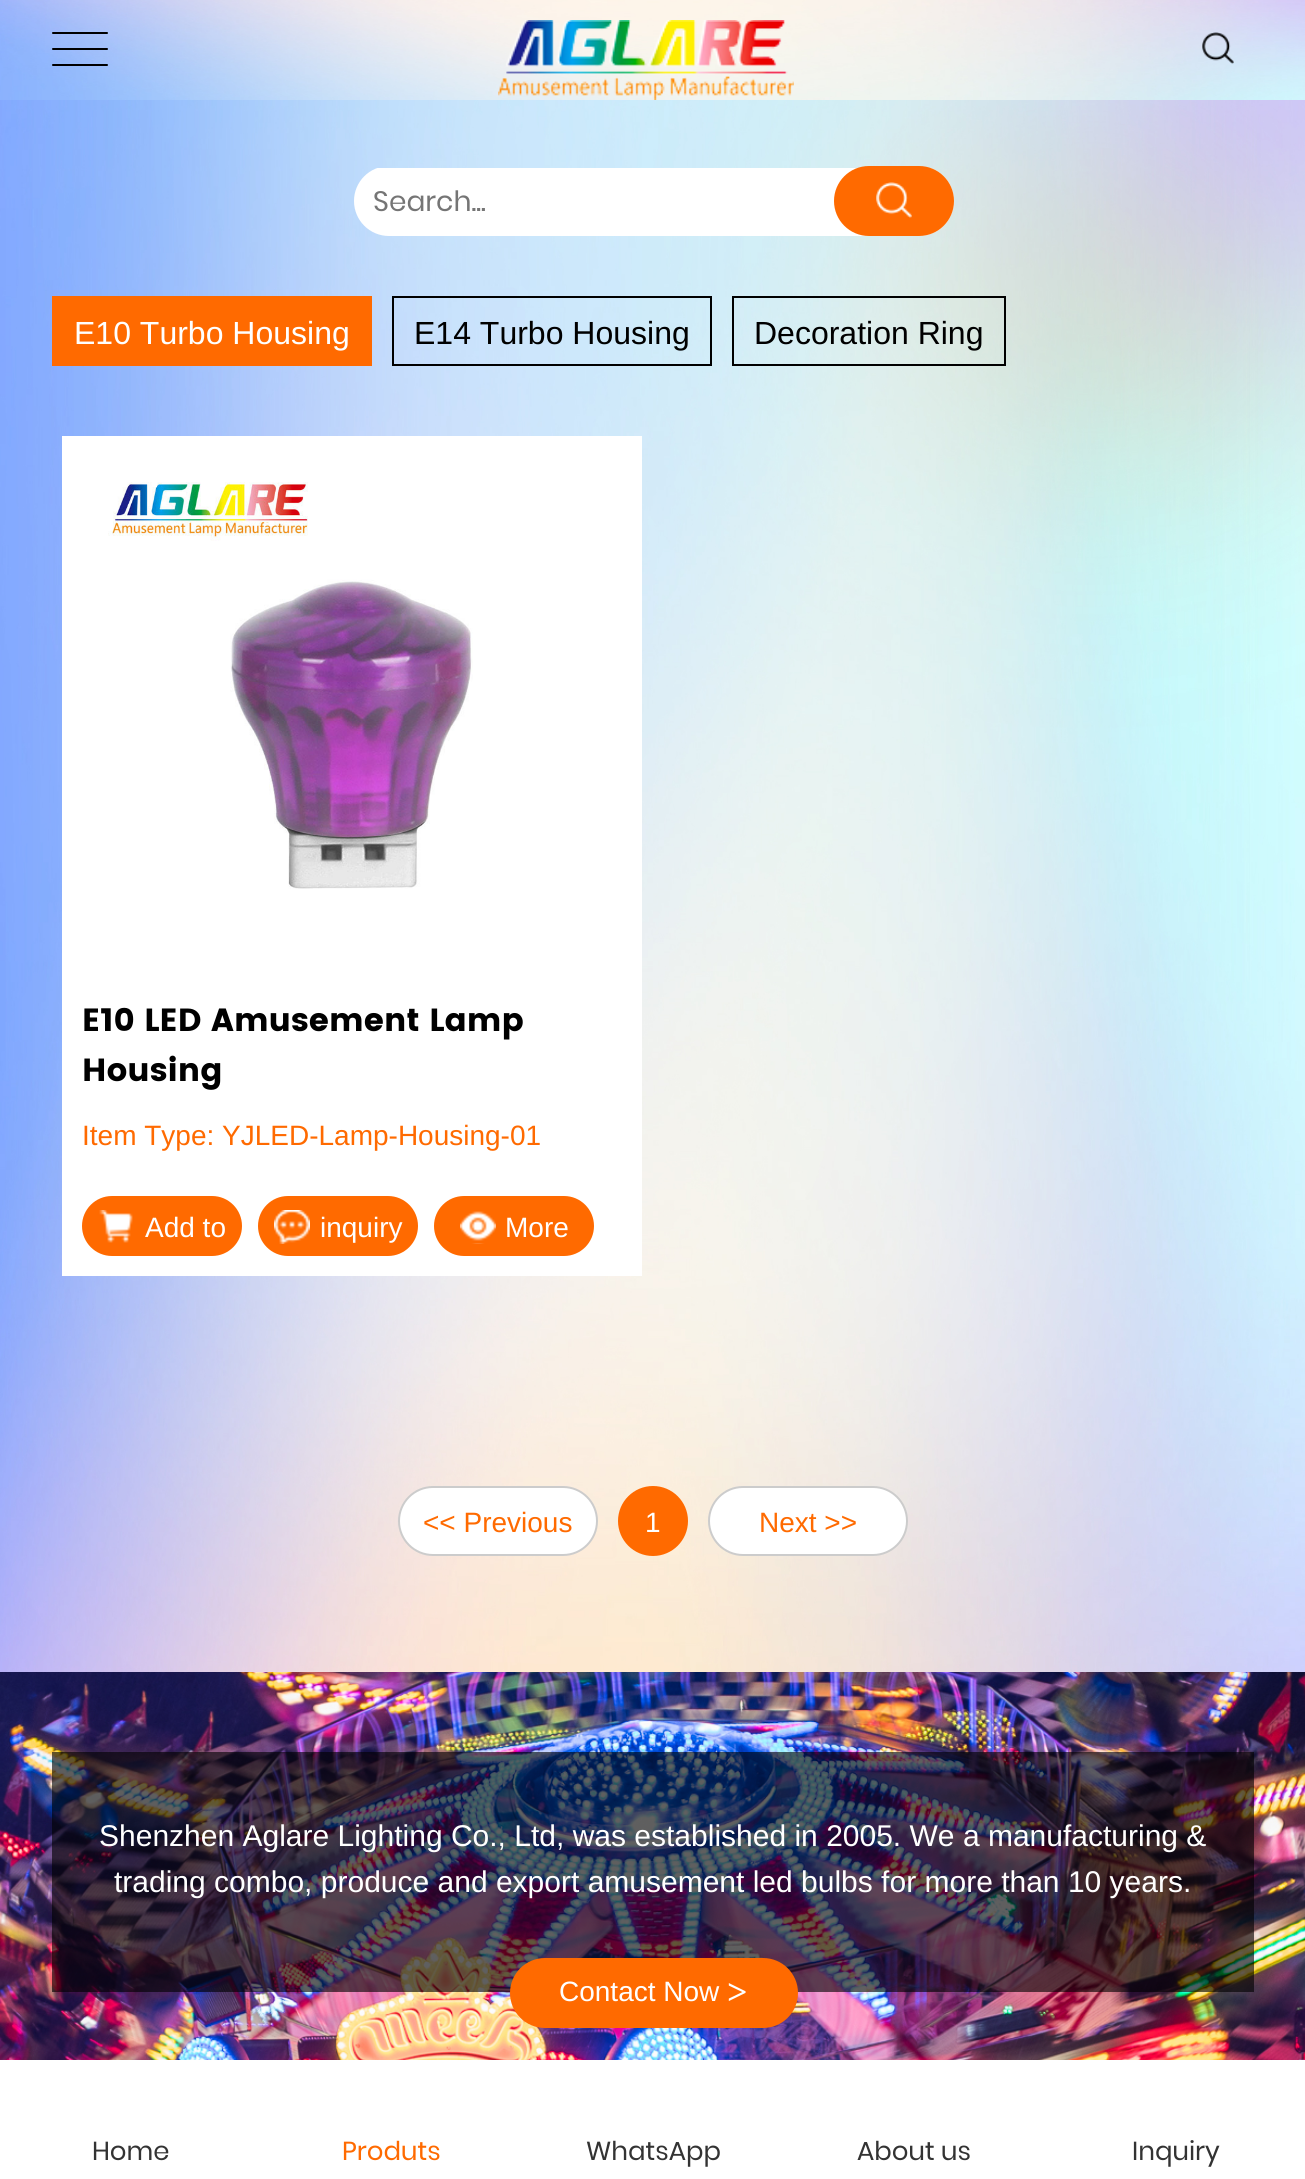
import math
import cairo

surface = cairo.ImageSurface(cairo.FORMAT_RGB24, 1305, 2179)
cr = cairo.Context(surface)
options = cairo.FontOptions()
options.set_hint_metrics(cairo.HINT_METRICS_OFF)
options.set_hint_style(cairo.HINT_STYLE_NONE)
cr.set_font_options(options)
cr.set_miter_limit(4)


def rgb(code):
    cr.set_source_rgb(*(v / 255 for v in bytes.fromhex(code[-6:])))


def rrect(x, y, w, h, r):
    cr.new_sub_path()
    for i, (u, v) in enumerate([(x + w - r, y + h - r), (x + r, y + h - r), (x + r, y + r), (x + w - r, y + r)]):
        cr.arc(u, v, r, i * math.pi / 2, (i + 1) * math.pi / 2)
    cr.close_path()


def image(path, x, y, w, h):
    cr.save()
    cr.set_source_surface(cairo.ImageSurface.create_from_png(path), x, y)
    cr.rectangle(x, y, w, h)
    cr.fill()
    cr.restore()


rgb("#ffffff")
cr.paint()
image("img/1.png", 0, 0, 1305, 100)
rgb("#000000")
rrect(52, 32, 56, 2, 1)
cr.fill()
rrect(52, 48, 56, 2, 1)
cr.fill()
rrect(52, 64, 56, 2, 1)
cr.fill()
image("img/2.png", 498, 20, 296, 80)
image("img/3.png", 1202, 32, 32, 32)
image("img/4.png", 0, 100, 1305, 1572)
cr.save()
rrect(354, 166, 600, 70, 35)
cr.clip()
rgb("#ffffff")
cr.new_path()
cr.move_to(354, 168)
cr.line_to(954, 168)
cr.line_to(954, 201)
cr.curve_to(954, 220.5, 938.5, 236, 919, 236)
cr.line_to(389, 236)
cr.curve_to(369.5, 236, 354, 220.5, 354, 201)
cr.close_path()
cr.fill()
cr.restore()
rgb("#ff6a00")
rrect(834, 166, 120, 70, 35)
cr.fill()
image("img/5.png", 876, 182, 36, 36)
cr.rectangle(52, 296, 320, 70)
cr.fill()
cr.rectangle(393, 297, 318, 68)
rgb("#000000")
cr.stroke()
cr.rectangle(733, 297, 272, 68)
cr.stroke()
rgb("#ffffff")
cr.rectangle(62, 436, 580, 840)
cr.fill()
image("img/6.png", 108, 482, 365, 407)
rgb("#ff6a00")
rrect(82, 1196, 160, 60, 30)
cr.fill()
image("img/7.png", 99, 1210, 34, 33)
rrect(258, 1196, 160, 60, 30)
cr.fill()
image("img/8.png", 274, 1210, 36, 34)
rrect(434, 1196, 160, 60, 30)
cr.fill()
image("img/9.png", 460, 1211, 36, 33)
rgb("#ffffff")
rrect(399, 1487, 198, 68, 34)
cr.fill_preserve()
rgb("#cccccc")
cr.stroke()
rgb("#ff6a00")
cr.arc(653, 1521, 34, 0, 2 * math.pi)
cr.fill_preserve()
cr.stroke()
rgb("#ffffff")
rrect(709, 1487, 198, 68, 34)
cr.fill_preserve()
rgb("#cccccc")
cr.stroke()
image("img/10.png", 0, 1672, 1305, 388)
cr.set_source_rgba(0, 0, 0, 0.62)
cr.rectangle(52, 1752, 1202, 240)
cr.fill()
rgb("#ff6a00")
rrect(510, 1958, 288, 70, 35)
cr.fill()
cr.select_font_face("Poppins")
cr.set_font_size(28)
rgb("#757575")
cr.move_to(373, 211)
cr.show_text("Search...")
cr.select_font_face("Liberation Sans")
cr.set_font_size(32)
rgb("#ffffff")
cr.move_to(74, 344)
cr.show_text("E10 Turbo Housing")
rgb("#000000")
cr.move_to(414, 344)
cr.show_text("E14 Turbo Housing")
cr.move_to(754, 344)
cr.show_text("Decoration Ring")
cr.select_font_face("Poppins", cairo.FONT_SLANT_NORMAL, cairo.FONT_WEIGHT_BOLD)
cr.move_to(82, 1031)
cr.show_text("E10 LED Amusement Lamp")
cr.move_to(82, 1081)
cr.show_text("Housing")
cr.select_font_face("Liberation Sans")
cr.set_font_size(28)
rgb("#ff6a00")
cr.move_to(82, 1145)
cr.show_text("Item Type: YJLED-Lamp-Housing-01")
rgb("#ffffff")
for x, y, s in [
    (145, 1237, "Add to"),
    (320, 1237, "inquiry"),
    (505, 1237, "More"),
]:
    cr.move_to(x, y)
    cr.show_text(s)
rgb("#ff6a00")
cr.move_to(423, 1532)
cr.show_text("<< Previous")
rgb("#ffffff")
cr.move_to(645, 1532)
cr.show_text("1")
rgb("#ff6a00")
cr.move_to(759, 1532)
cr.show_text("Next >>")
cr.set_font_size(30)
rgb("#ffffff")
cr.move_to(99, 1846)
cr.show_text("Shenzhen Aglare Lighting Co., Ltd, was established in 2005. We a manufacturing &")
cr.move_to(114, 1892)
cr.show_text("trading combo, produce and export amusement led bulbs for more than 10 years.")
cr.set_font_size(28)
cr.move_to(559, 2001)
cr.show_text("Contact Now")
cr.select_font_face("Liberation Serif", cairo.FONT_SLANT_NORMAL, cairo.FONT_WEIGHT_BOLD)
cr.set_font_size(36)
cr.move_to(727, 2004)
cr.show_text(">")
cr.select_font_face("Poppins")
cr.set_font_size(26)
rgb("#333333")
cr.move_to(92, 2160)
cr.show_text("Home")
rgb("#ff6a00")
cr.move_to(342, 2160)
cr.show_text("Produts")
rgb("#333333")
for x, y, s in [
    (586, 2160, "WhatsApp"),
    (857, 2160, "About us"),
    (1132, 2160, "Inquiry"),
]:
    cr.move_to(x, y)
    cr.show_text(s)
surface.write_to_png("page.png")
